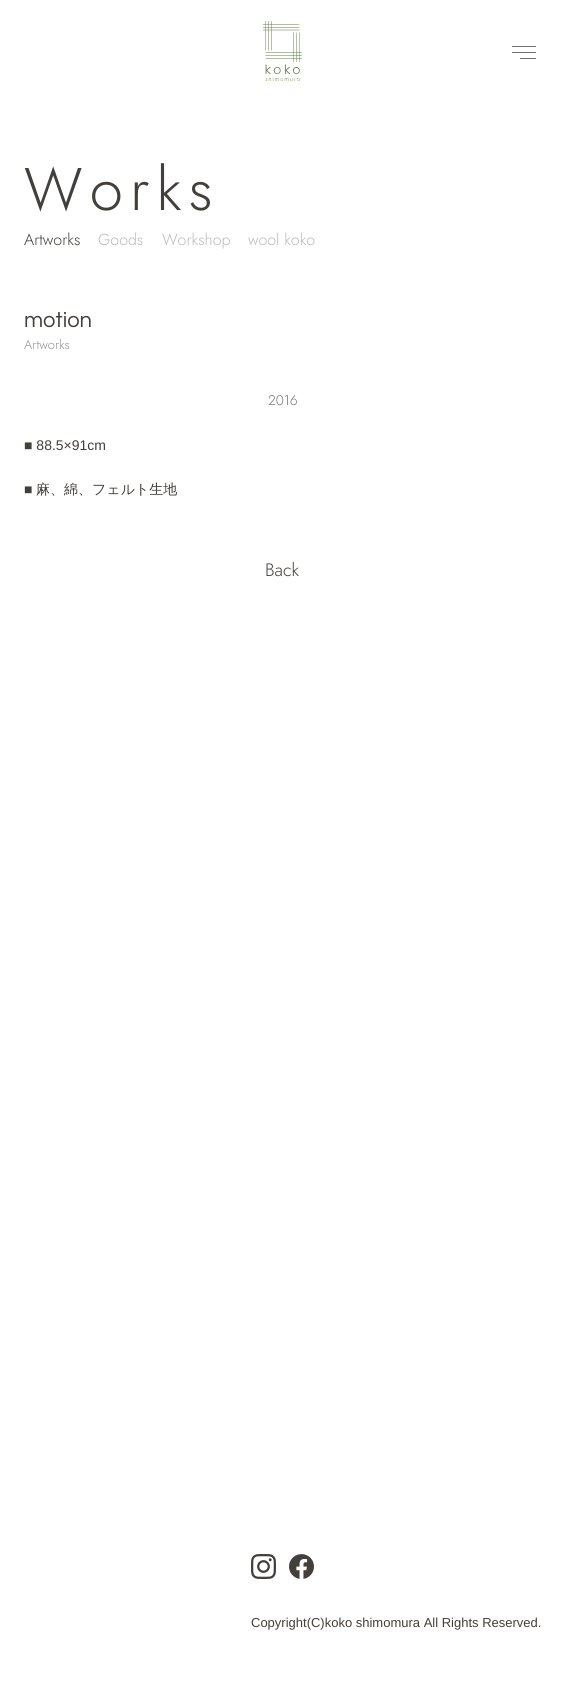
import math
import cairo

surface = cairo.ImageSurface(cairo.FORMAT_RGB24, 565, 1684)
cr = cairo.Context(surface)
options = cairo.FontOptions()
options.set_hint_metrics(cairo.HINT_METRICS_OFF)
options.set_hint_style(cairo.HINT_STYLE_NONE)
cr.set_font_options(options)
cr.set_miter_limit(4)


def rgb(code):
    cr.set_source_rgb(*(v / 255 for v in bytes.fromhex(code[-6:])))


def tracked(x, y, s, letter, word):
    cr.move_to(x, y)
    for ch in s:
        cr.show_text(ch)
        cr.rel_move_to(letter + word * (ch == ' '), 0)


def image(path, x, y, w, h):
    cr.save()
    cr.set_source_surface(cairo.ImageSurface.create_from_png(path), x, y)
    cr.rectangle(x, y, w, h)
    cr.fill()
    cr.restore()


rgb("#ffffff")
cr.paint()
image("img/1.png", 263, 21, 39, 60)
for x, y, w, h, color in [
    (512, 46, 24, 1, "#707070"),
    (512, 52, 24, 1, "#707070"),
    (520, 58, 16, 1, "#707070"),
]:
    rgb(color)
    cr.rectangle(x, y, w, h)
    cr.fill()
image("img/2.png", 251, 1554, 25, 25)
image("img/3.png", 289, 1554, 25, 25)
cr.select_font_face("Jost Light")
cr.set_font_size(60)
rgb("#433f3a")
tracked(24, 210, "Works", 7.25, 0)
cr.set_font_size(16)
cr.move_to(24, 245)
cr.show_text("Artworks")
rgb("#bcbbbb")
for x, y, s in [
    (98, 245, "Goods"),
    (162, 245, "Workshop"),
    (248, 245, "wool koko"),
]:
    cr.move_to(x, y)
    cr.show_text(s)
cr.select_font_face("Questrial")
cr.set_font_size(22)
rgb("#433f3a")
cr.move_to(24, 327)
cr.show_text("motion")
cr.select_font_face("Jost Light")
cr.set_font_size(13)
rgb("#939393")
cr.move_to(24, 349)
cr.show_text("Artworks")
cr.set_font_size(14)
rgb("#777777")
cr.move_to(268, 405)
cr.show_text("2016")
cr.select_font_face("Liberation Sans")
rgb("#433f3a")
cr.move_to(24, 450)
cr.show_text("■ 88.5×91cm")
cr.move_to(24, 494)
cr.show_text("■")
cr.select_font_face("WenQuanYi Zen Hei Medium")
cr.move_to(36, 494)
cr.show_text("麻、綿、フェルト生地")
cr.select_font_face("Jost Light")
cr.set_font_size(18)
cr.move_to(265, 576)
cr.show_text("Back")
cr.select_font_face("Liberation Sans")
cr.set_font_size(13)
cr.move_to(251, 1627)
cr.show_text("Copyright(C)koko shimomura All Rights Reserved.")
surface.write_to_png("page.png")
